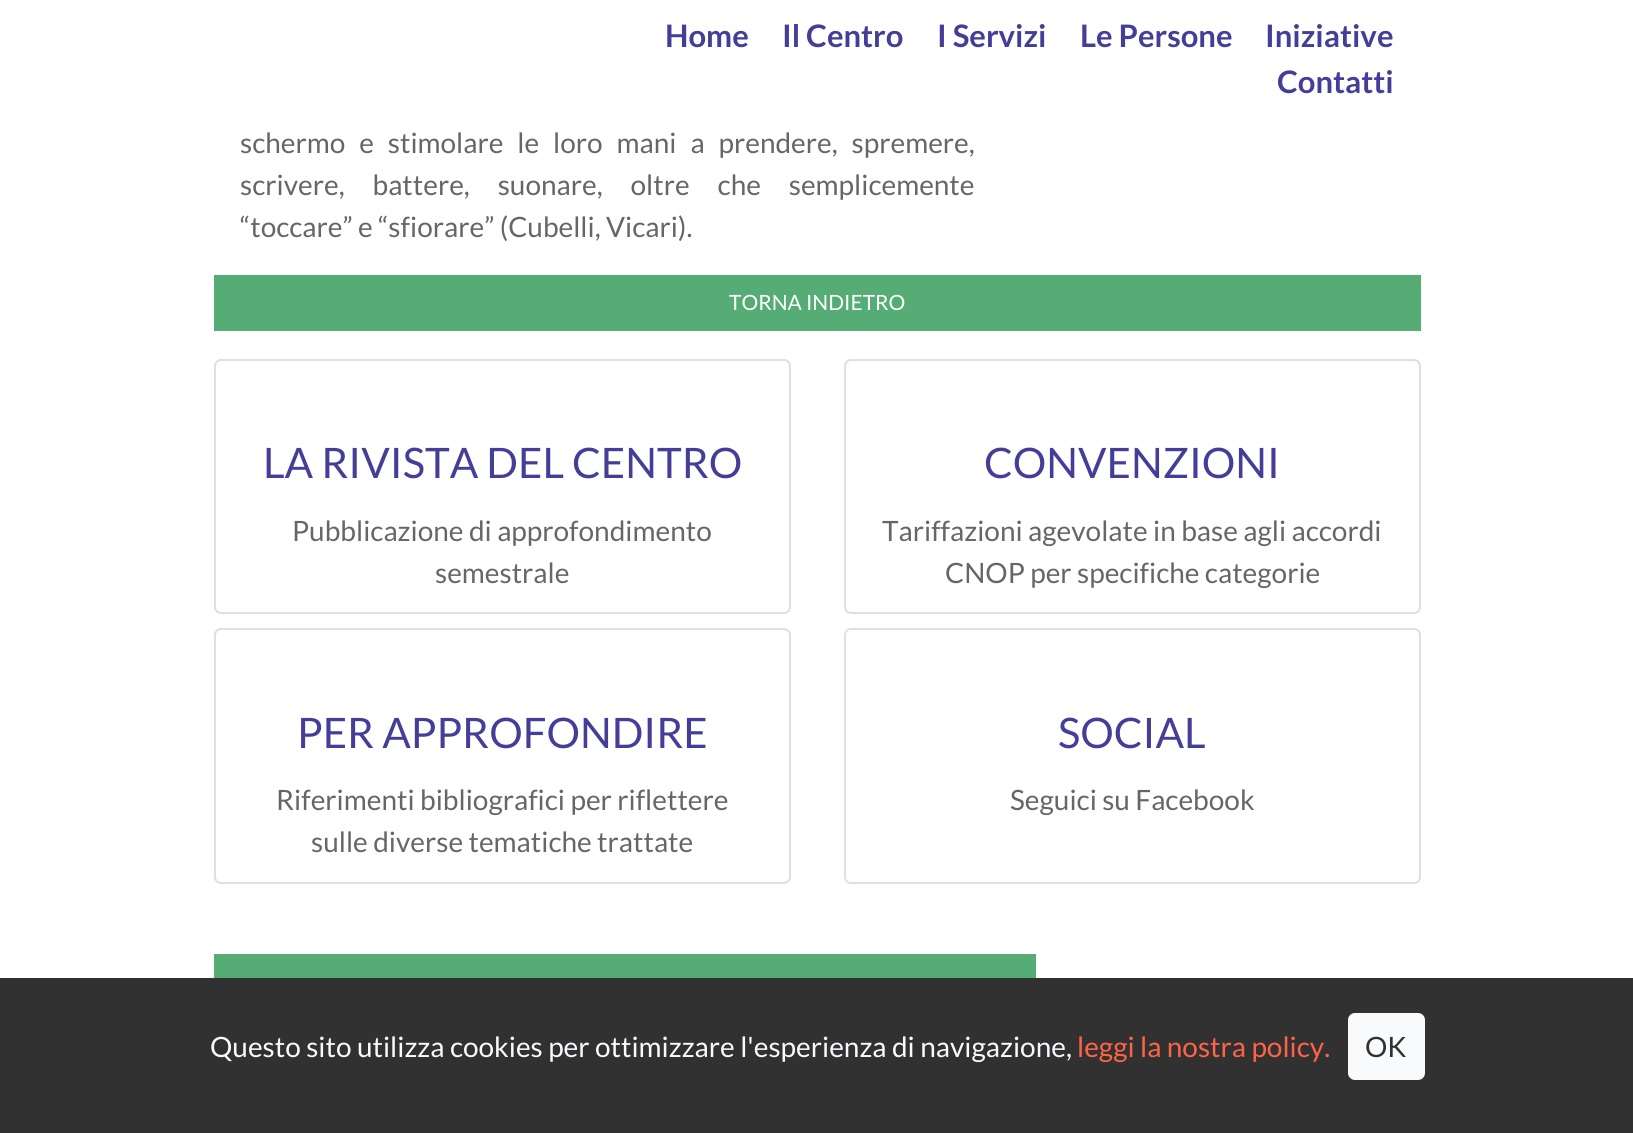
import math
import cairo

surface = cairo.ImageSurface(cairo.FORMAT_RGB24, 1633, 1133)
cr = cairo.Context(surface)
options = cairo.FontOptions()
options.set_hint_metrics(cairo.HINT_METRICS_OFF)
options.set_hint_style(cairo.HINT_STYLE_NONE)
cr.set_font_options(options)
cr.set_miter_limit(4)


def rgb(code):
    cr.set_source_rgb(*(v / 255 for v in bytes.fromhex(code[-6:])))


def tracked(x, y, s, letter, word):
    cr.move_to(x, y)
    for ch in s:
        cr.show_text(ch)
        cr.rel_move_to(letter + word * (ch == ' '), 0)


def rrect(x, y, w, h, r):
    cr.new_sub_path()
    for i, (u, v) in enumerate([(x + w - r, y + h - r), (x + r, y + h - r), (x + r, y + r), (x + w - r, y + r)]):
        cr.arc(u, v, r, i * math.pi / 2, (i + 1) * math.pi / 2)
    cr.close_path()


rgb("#ffffff")
cr.paint()
rgb("#55ad75")
cr.rectangle(214, 275, 1207, 56)
cr.fill()
rrect(215, 360, 575, 253, 6)
rgb("#dfdfdf")
cr.stroke()
rrect(845, 360, 575, 253, 6)
cr.stroke()
rrect(215, 629, 575, 254, 6)
cr.stroke()
rrect(845, 629, 575, 254, 6)
cr.stroke()
rgb("#55ad75")
cr.rectangle(214, 954, 822, 24)
cr.fill()
rgb("#313131")
cr.rectangle(0, 978, 1633, 155)
cr.fill()
rgb("#f9fafc")
rrect(1348, 1013, 77, 67, 7)
cr.fill()
cr.select_font_face("Lato", cairo.FONT_SLANT_NORMAL, cairo.FONT_WEIGHT_BOLD)
cr.set_font_size(31)
rgb("#453e98")
for x, y, s in [
    (665, 47, "Home"),
    (782, 47, "Il Centro"),
    (937, 47, "I Servizi"),
    (1080, 47, "Le Persone"),
    (1265, 47, "Iniziative"),
    (1277, 93, "Contatti"),
]:
    cr.move_to(x, y)
    cr.show_text(s)
cr.select_font_face("Lato")
cr.set_font_size(28)
rgb("#666666")
tracked(240, 153, "schermo e stimolare le loro mani a prendere, spremere,", 0, 8.5)
tracked(240, 195, "scrivere, battere, suonare, oltre che semplicemente", 0, 22.5)
cr.move_to(240, 237)
cr.show_text("“toccare” e “sfiorare” (Cubelli, Vicari).")
cr.set_font_size(21)
rgb("#ffffff")
cr.move_to(729, 310)
cr.show_text("TORNA INDIETRO")
cr.set_font_size(42)
rgb("#453e98")
cr.move_to(263, 478)
cr.show_text("LA RIVISTA DEL CENTRO")
cr.set_font_size(28)
rgb("#666666")
cr.move_to(292, 541)
cr.show_text("Pubblicazione di approfondimento")
cr.move_to(435, 583)
cr.show_text("semestrale")
cr.set_font_size(42)
rgb("#453e98")
cr.move_to(984, 478)
cr.show_text("CONVENZIONI")
cr.set_font_size(28)
rgb("#666666")
cr.move_to(882, 541)
cr.show_text("Tariffazioni agevolate in base agli accordi")
cr.move_to(945, 583)
cr.show_text("CNOP per specifiche categorie")
cr.set_font_size(42)
rgb("#453e98")
cr.move_to(297, 748)
cr.show_text("PER APPROFONDIRE")
cr.set_font_size(28)
rgb("#666666")
cr.move_to(276, 810)
cr.show_text("Riferimenti bibliografici per riflettere")
cr.move_to(311, 852)
cr.show_text("sulle diverse tematiche trattate")
cr.set_font_size(42)
rgb("#453e98")
cr.move_to(1058, 748)
cr.show_text("SOCIAL")
cr.set_font_size(28)
rgb("#666666")
cr.move_to(1010, 810)
cr.show_text("Seguici su Facebook")
rgb("#f9fafc")
cr.move_to(210, 1057)
cr.show_text("Questo sito utilizza cookies per ottimizzare l'esperienza di navigazione,")
rgb("#ff6347")
cr.move_to(1077, 1057)
cr.show_text("leggi la nostra policy.")
rgb("#313131")
cr.move_to(1365, 1057)
cr.show_text("OK")
surface.write_to_png("page.png")
